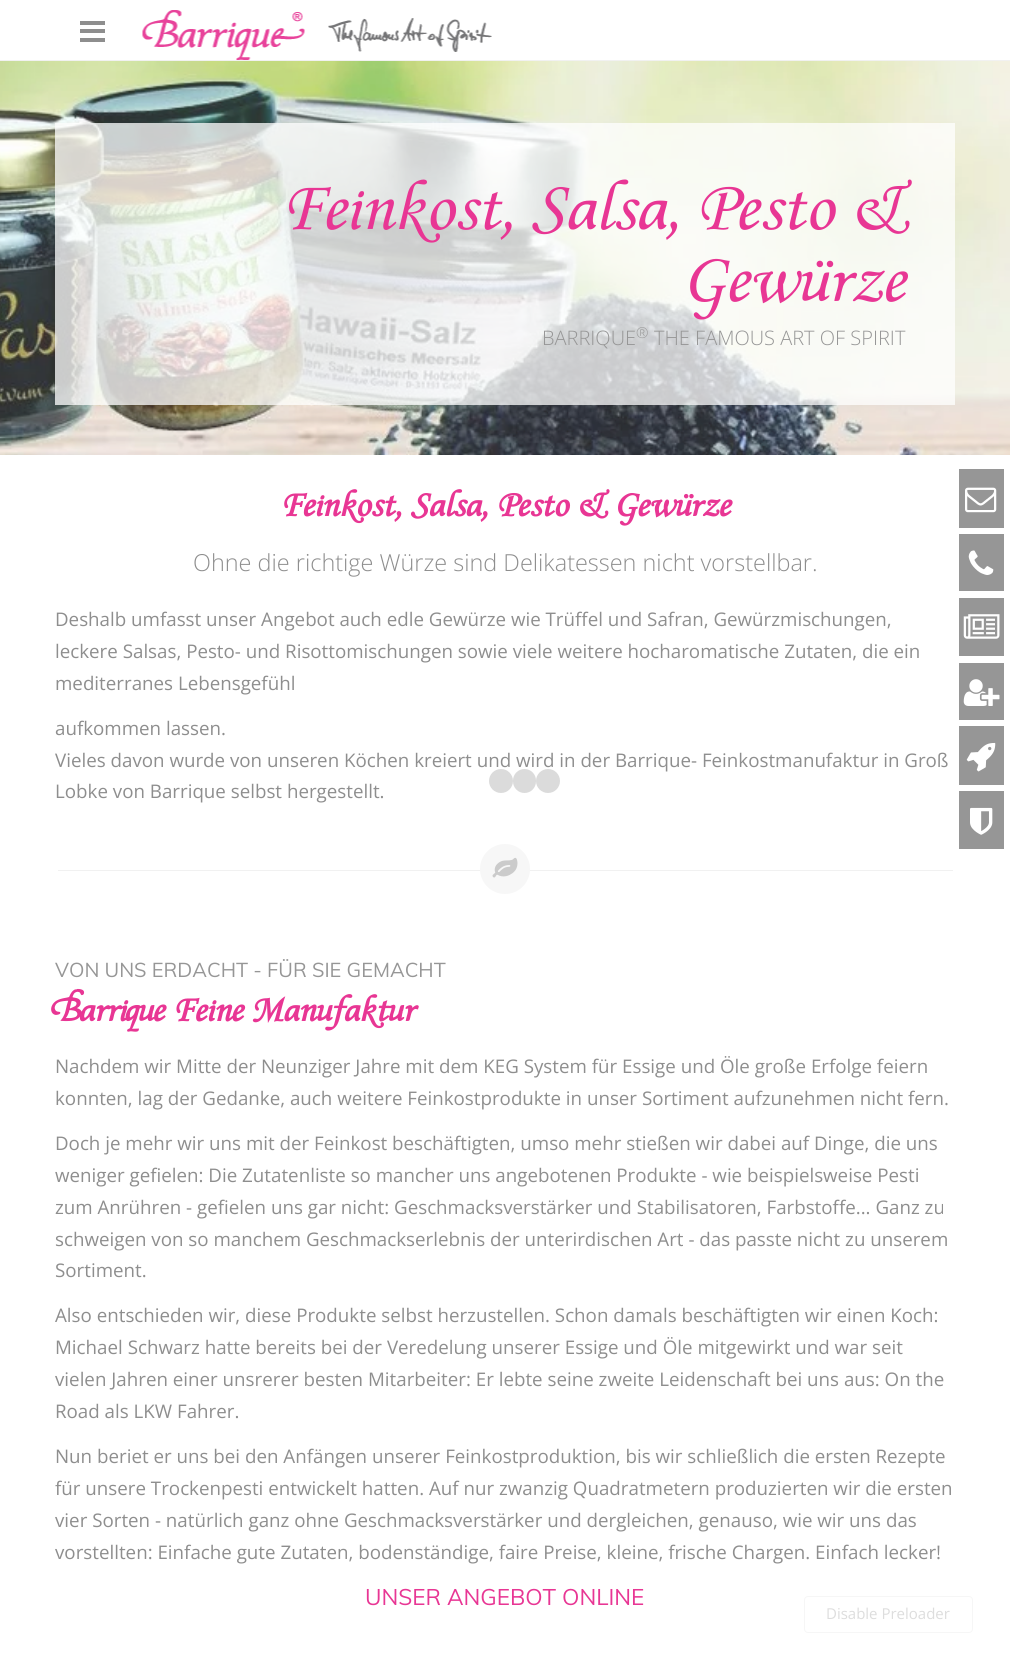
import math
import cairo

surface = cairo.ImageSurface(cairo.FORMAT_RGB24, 1010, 1670)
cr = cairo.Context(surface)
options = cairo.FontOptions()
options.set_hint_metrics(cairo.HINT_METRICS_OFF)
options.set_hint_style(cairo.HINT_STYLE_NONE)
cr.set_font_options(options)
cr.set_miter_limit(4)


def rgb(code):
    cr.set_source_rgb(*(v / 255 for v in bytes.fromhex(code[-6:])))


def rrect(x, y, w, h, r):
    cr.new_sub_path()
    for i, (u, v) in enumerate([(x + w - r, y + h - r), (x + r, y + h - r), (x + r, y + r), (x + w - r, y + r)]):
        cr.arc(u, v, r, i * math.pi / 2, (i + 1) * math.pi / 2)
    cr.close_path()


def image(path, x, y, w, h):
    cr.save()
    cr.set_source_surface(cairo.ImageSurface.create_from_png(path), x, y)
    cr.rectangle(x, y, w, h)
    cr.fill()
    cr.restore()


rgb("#ffffff")
cr.paint()
for x, y, w, h, color in [
    (0, 60, 1010, 1, "#f1f1f1"),
    (80, 21, 25, 4, "#8e8e8e"),
    (80, 29, 25, 4, "#8e8e8e"),
    (80, 38, 25, 4, "#8e8e8e"),
]:
    rgb(color)
    cr.rectangle(x, y, w, h)
    cr.fill()
image("img/1.png", 142, 10, 350, 50)
image("img/2.png", 0, 61, 1010, 394)
cr.set_source_rgba(1, 1, 1, 0.75)
cr.rectangle(55, 123, 900, 282)
cr.fill()
rrect(804.5, 1596.5, 168, 36, 3.5)
rgb("#f6f6f6")
cr.set_line_width(1)
cr.stroke()
rgb("#969696")
cr.rectangle(959, 469, 45, 59)
cr.fill()
image("img/3.png", 965, 487, 32, 26)
cr.rectangle(959, 534, 45, 57)
cr.fill()
image("img/4.png", 968, 550, 26, 25)
cr.rectangle(959, 598, 45, 58)
cr.fill()
image("img/5.png", 963, 614, 37, 25)
cr.rectangle(959, 663, 45, 57)
cr.fill()
image("img/6.png", 963, 679, 37, 27)
cr.rectangle(959, 726, 45, 59)
cr.fill()
image("img/7.png", 966, 742, 30, 30)
cr.rectangle(959, 791, 45, 58)
cr.fill()
image("img/8.png", 970, 807, 23, 28)
rgb("#f1f1f1")
cr.rectangle(58, 870, 423, 1)
cr.fill()
cr.rectangle(529, 870, 424, 1)
cr.fill()
rgb("#f7f7f7")
cr.arc(505, 869, 25, 0, 2 * math.pi)
cr.fill()
image("img/9.png", 492, 857, 26, 21)
cr.select_font_face("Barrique", cairo.FONT_SLANT_ITALIC)
cr.set_font_size(72)
rgb("#e83694")
cr.move_to(281, 229)
cr.show_text("Feinkost, Salsa, Pesto &")
cr.move_to(681, 301)
cr.show_text("Gewürze")
cr.select_font_face("Open Sans Light")
cr.set_font_size(20)
rgb("#969696")
cr.move_to(542, 345)
cr.show_text("BARRIQUE")
cr.set_font_size(15)
cr.move_to(636, 338)
cr.show_text("®")
cr.set_font_size(20)
cr.move_to(654, 345)
cr.show_text("THE FAMOUS ART OF SPIRIT")
cr.select_font_face("Open Sans")
cr.set_font_size(15)
rgb("#dddddd")
cr.move_to(826, 1619)
cr.show_text("Disable Preloader")
cr.select_font_face("Barrique", cairo.FONT_SLANT_ITALIC, cairo.FONT_WEIGHT_BOLD)
cr.set_font_size(37.5)
rgb("#e83694")
cr.move_to(280, 516)
cr.show_text("Feinkost, Salsa, Pesto & Gewürze")
cr.select_font_face("Open Sans Light")
cr.set_font_size(23.45)
rgb("#8e8e8e")
cr.move_to(193, 571)
cr.show_text("Ohne die richtige Würze sind Delikatessen nicht vorstellbar.")
cr.select_font_face("Open Sans")
cr.set_font_size(18.75)
for x, y, s in [
    (55, 626, "Deshalb umfasst unser Angebot auch edle Gewürze wie Trüffel und Safran, Gewürzmischungen,"),
    (55, 658, "leckere Salsas, Pesto- und Risottomischungen sowie viele weitere hocharomatische Zutaten, die ein"),
    (55, 690, "mediterranes Lebensgefühl"),
    (55, 735, "aufkommen lassen."),
    (55, 767, "Vieles davon wurde von unseren Köchen kreiert und wird in der Barrique- Feinkostmanufaktur in Groß"),
]:
    cr.move_to(x, y)
    cr.show_text(s)
rgb("#dbdbdb")
cr.new_path()
cr.arc(548, 781, 12, 0, 2 * math.pi)
cr.fill()
rrect(513, 769, 23, 24, 11.5)
cr.fill()
cr.arc(501, 781, 12, 0, 2 * math.pi)
cr.fill()
rgb("#8e8e8e")
cr.move_to(55, 798)
cr.show_text("Lobke von Barrique selbst hergestellt.")
cr.select_font_face("Muli")
cr.set_font_size(20)
rgb("#969696")
cr.move_to(55, 977)
cr.show_text("VON UNS ERDACHT - FÜR SIE GEMACHT")
cr.select_font_face("Barrique", cairo.FONT_SLANT_ITALIC, cairo.FONT_WEIGHT_BOLD)
cr.set_font_size(37.5)
rgb("#e83694")
cr.move_to(55, 1021)
cr.show_text("Barrique Feine Manufaktur")
cr.select_font_face("Open Sans")
cr.set_font_size(18.75)
rgb("#8e8e8e")
for x, y, s in [
    (55, 1073, "Nachdem wir Mitte der Neunziger Jahre mit dem KEG System für Essige und Öle große Erfolge feiern"),
    (55, 1105, "konnten, lag der Gedanke, auch weitere Feinkostprodukte in unser Sortiment aufzunehmen nicht fern."),
    (55, 1150, "Doch je mehr wir uns mit der Feinkost beschäftigten, umso mehr stießen wir dabei auf Dinge, die uns"),
    (55, 1182, "weniger gefielen: Die Zutatenliste so mancher uns angebotenen Produkte - wie beispielsweise Pesti"),
    (55, 1214, "zum Anrühren - gefielen uns gar nicht: Geschmacksverstärker und Stabilisatoren, Farbstoffe... Ganz zu"),
    (55, 1246, "schweigen von so manchem Geschmackserlebnis der unterirdischen Art - das passte nicht zu unserem"),
    (55, 1277, "Sortiment."),
    (55, 1322, "Also entschieden wir, diese Produkte selbst herzustellen. Schon damals beschäftigten wir einen Koch:"),
    (55, 1354, "Michael Schwarz hatte bereits bei der Veredelung unserer Essige und Öle mitgewirkt und war seit"),
    (55, 1386, "vielen Jahren einer unsrerer besten Mitarbeiter: Er lebte seine zweite Leidenschaft bei uns aus: On the"),
    (55, 1418, "Road als LKW Fahrer."),
    (55, 1463, "Nun beriet er uns bei den Anfängen unserer Feinkostproduktion, bis wir schließlich die ersten Rezepte"),
    (55, 1495, "für unsere Trockenpesti entwickelt hatten. Auf nur zwanzig Quadratmetern produzierten wir die ersten"),
    (55, 1527, "vier Sorten - natürlich ganz ohne Geschmacksverstärker und dergleichen, genauso, wie wir uns das"),
    (55, 1559, "vorstellten: Einfache gute Zutaten, bodenständige, faire Preise, kleine, frische Chargen. Einfach lecker!"),
]:
    cr.move_to(x, y)
    cr.show_text(s)
cr.select_font_face("Muli")
cr.set_font_size(22.5)
rgb("#e83694")
cr.move_to(365, 1605)
cr.show_text("UNSER ANGEBOT ONLINE")
surface.write_to_png("page.png")
